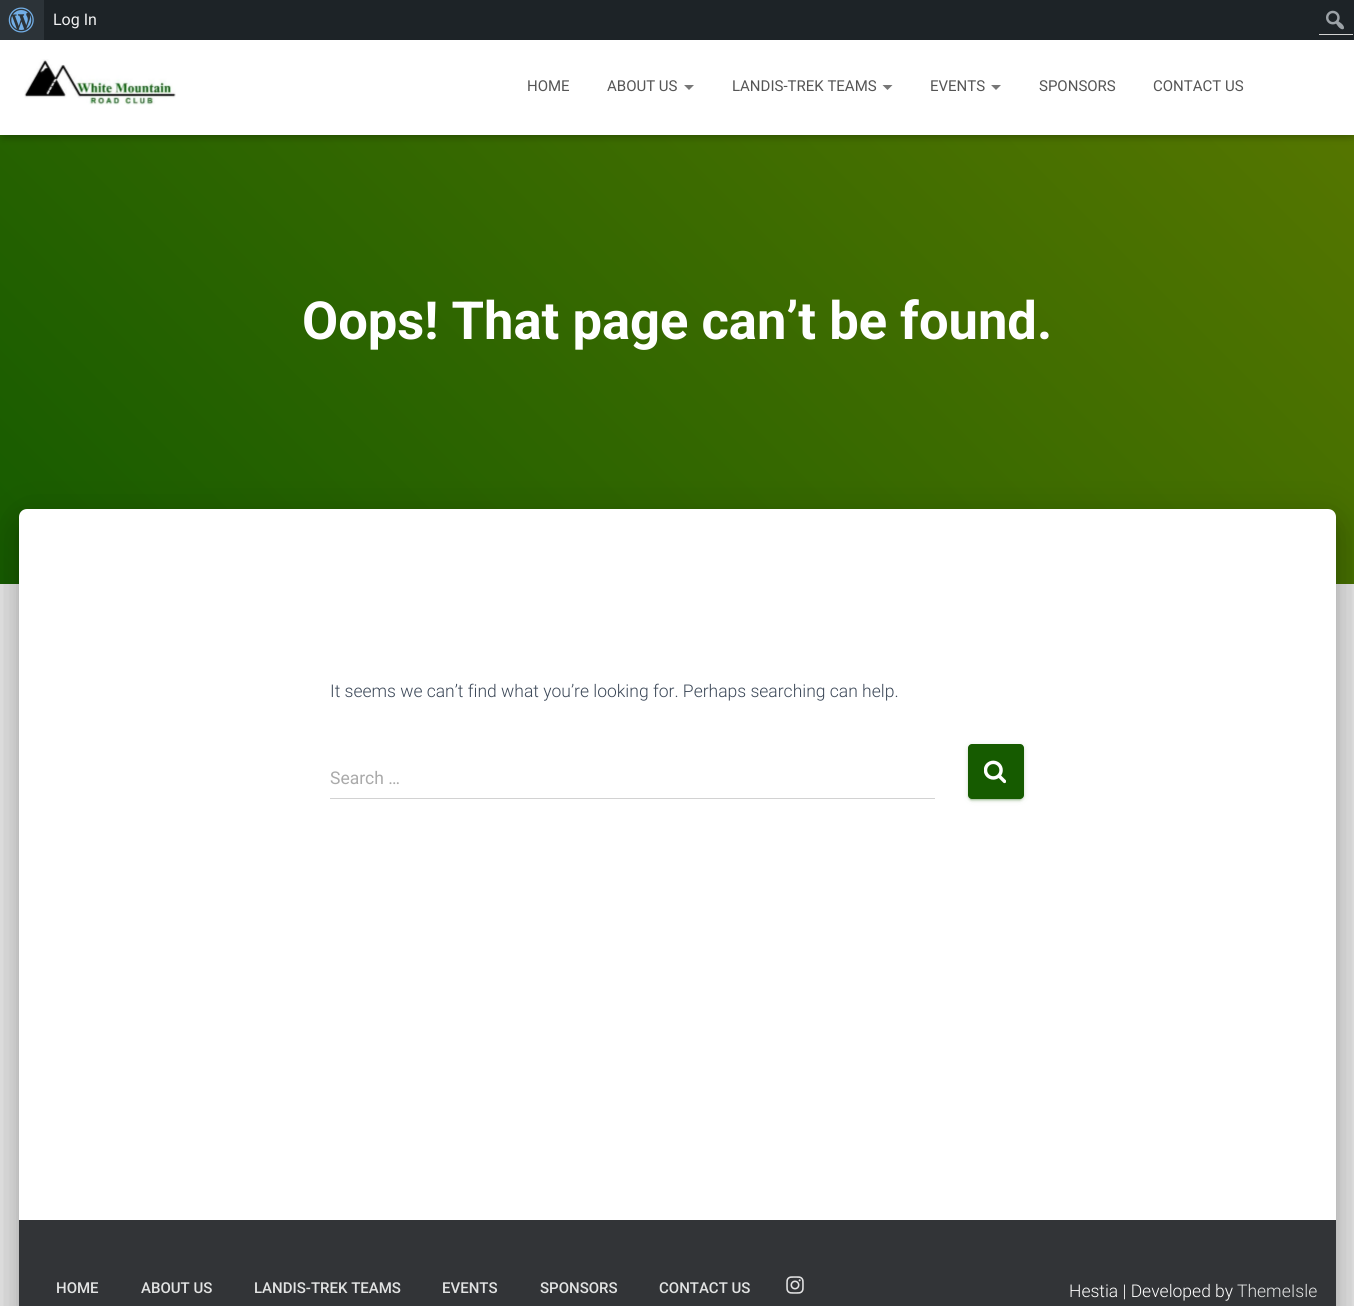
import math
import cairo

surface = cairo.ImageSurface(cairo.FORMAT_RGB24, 1354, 1306)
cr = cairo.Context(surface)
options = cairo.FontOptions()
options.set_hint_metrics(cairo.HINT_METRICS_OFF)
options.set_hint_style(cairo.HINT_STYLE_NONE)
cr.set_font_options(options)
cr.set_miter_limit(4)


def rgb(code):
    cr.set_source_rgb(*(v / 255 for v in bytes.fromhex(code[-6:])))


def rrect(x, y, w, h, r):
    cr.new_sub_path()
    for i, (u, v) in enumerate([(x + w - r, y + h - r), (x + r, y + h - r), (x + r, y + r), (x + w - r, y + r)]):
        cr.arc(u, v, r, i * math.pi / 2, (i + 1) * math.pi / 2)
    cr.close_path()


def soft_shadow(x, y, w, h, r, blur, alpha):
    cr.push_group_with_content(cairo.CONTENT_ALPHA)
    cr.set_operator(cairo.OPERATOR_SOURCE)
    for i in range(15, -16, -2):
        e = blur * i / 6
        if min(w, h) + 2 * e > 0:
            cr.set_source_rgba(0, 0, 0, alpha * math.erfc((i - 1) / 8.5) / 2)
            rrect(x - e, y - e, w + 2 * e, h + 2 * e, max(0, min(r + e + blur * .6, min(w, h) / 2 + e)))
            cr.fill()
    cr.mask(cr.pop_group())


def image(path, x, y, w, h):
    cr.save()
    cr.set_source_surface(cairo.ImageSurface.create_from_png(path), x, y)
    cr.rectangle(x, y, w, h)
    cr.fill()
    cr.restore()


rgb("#e5e5e5")
cr.paint()
gradient = cairo.LinearGradient(203, 787, 1152, -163)
gradient.add_color_stop_rgba(0, 0.086, 0.357, 0, 1)
gradient.add_color_stop_rgba(1, 0.345, 0.467, 0, 1)
cr.set_source(gradient)
cr.rectangle(0, 135, 1354, 449)
cr.fill()
rgb("#000000")
soft_shadow(3, 48, 1350, 90, 0, 3, 0.1)
soft_shadow(0, 41, 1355, 95, 0, 6, 0.12)
soft_shadow(8, 49, 1340, 80, 0, 6, 0.42)
rgb("#1d2327")
cr.rectangle(44, 0, 1310, 40)
cr.fill()
rgb("#2c3338")
cr.rectangle(0, 0, 44, 40)
cr.fill()
image("img/1.png", 8, 7, 26, 26)
image("img/2.png", 1326, 10, 18, 20)
rgb("#d2d2d2")
cr.rectangle(1319, 34, 34, 1)
cr.fill()
rgb("#ffffff")
cr.rectangle(0, 40, 1354, 95)
cr.fill()
image("img/3.png", 24, 59, 152, 46)
rgb("#777777")
cr.new_path()
cr.move_to(684, 85)
cr.line_to(694, 85)
cr.line_to(689, 90)
cr.close_path()
cr.fill()
cr.new_path()
cr.move_to(882.5, 85)
cr.line_to(892.5, 85)
cr.line_to(887.5, 90)
cr.close_path()
cr.fill()
cr.new_path()
cr.move_to(991, 85)
cr.line_to(1001, 85)
cr.line_to(996, 90)
cr.close_path()
cr.fill()
rgb("#000000")
soft_shadow(25, 525, 1305, 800, 1, 6, 0.2)
soft_shadow(13, 510, 1330, 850, 14, 19, 0.12)
soft_shadow(16, 526, 1323, 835, 10, 15, 0.14)
rgb("#ffffff")
cr.new_path()
cr.move_to(27, 509)
cr.line_to(1328, 509)
cr.curve_to(1332.5, 509, 1336, 512.5, 1336, 517)
cr.line_to(1336, 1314)
cr.line_to(19, 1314)
cr.line_to(19, 517)
cr.curve_to(19, 512.5, 22.5, 509, 27, 509)
cr.close_path()
cr.fill()
rgb("#d2d2d2")
cr.rectangle(330, 798, 605, 1)
cr.fill()
rgb("#165b00")
soft_shadow(968, 745, 56, 55, 4, 3, 0.12)
soft_shadow(970, 750, 51, 50, 1, 0.5, 0.2)
soft_shadow(968, 746, 56, 55, 4, 1, 0.14)
rgb("#165b00")
rrect(968, 744, 56, 55, 4)
cr.fill()
image("img/4.png", 984, 760, 22, 24)
rgb("#323437")
cr.rectangle(19, 1220, 1317, 86)
cr.fill()
image("img/5.png", 786, 1276, 18, 18)
cr.select_font_face("Roboto")
cr.set_font_size(16)
rgb("#f0f0f1")
cr.move_to(53, 25)
cr.show_text("Log In")
cr.set_font_size(15)
rgb("#555555")
for x, y, s in [
    (527, 91, "HOME"),
    (607, 91, "ABOUT US"),
    (732, 91, "LANDIS-TREK TEAMS"),
    (930, 91, "EVENTS"),
    (1039, 91, "SPONSORS"),
    (1153, 91, "CONTACT US"),
]:
    cr.move_to(x, y)
    cr.show_text(s)
cr.select_font_face("Roboto", cairo.FONT_SLANT_NORMAL, cairo.FONT_WEIGHT_BOLD)
cr.set_font_size(52.5)
rgb("#ffffff")
cr.move_to(302, 339)
cr.show_text("Oops! That page can’t be found.")
cr.select_font_face("Roboto Light")
cr.set_font_size(17.5)
rgb("#3c4858")
cr.move_to(330, 697)
cr.show_text("It seems we can’t find what you’re looking for. Perhaps searching can help.")
cr.select_font_face("Roboto")
rgb("#aaaaaa")
cr.move_to(330, 784)
cr.show_text("Search …")
cr.select_font_face("Roboto Medium")
cr.set_font_size(15)
rgb("#e2e3e3")
for x, y, s in [
    (56, 1293, "HOME"),
    (141, 1293, "ABOUT US"),
    (254, 1293, "LANDIS-TREK TEAMS"),
    (442, 1293, "EVENTS"),
    (540, 1293, "SPONSORS"),
    (659, 1293, "CONTACT US"),
]:
    cr.move_to(x, y)
    cr.show_text(s)
cr.select_font_face("Roboto Light")
cr.set_font_size(17.5)
rgb("#ffffff")
cr.move_to(1069, 1297)
cr.show_text("Hestia | Developed by")
rgb("#e2e3e3")
cr.move_to(1237, 1297)
cr.show_text("ThemeIsle")
surface.write_to_png("page.png")
